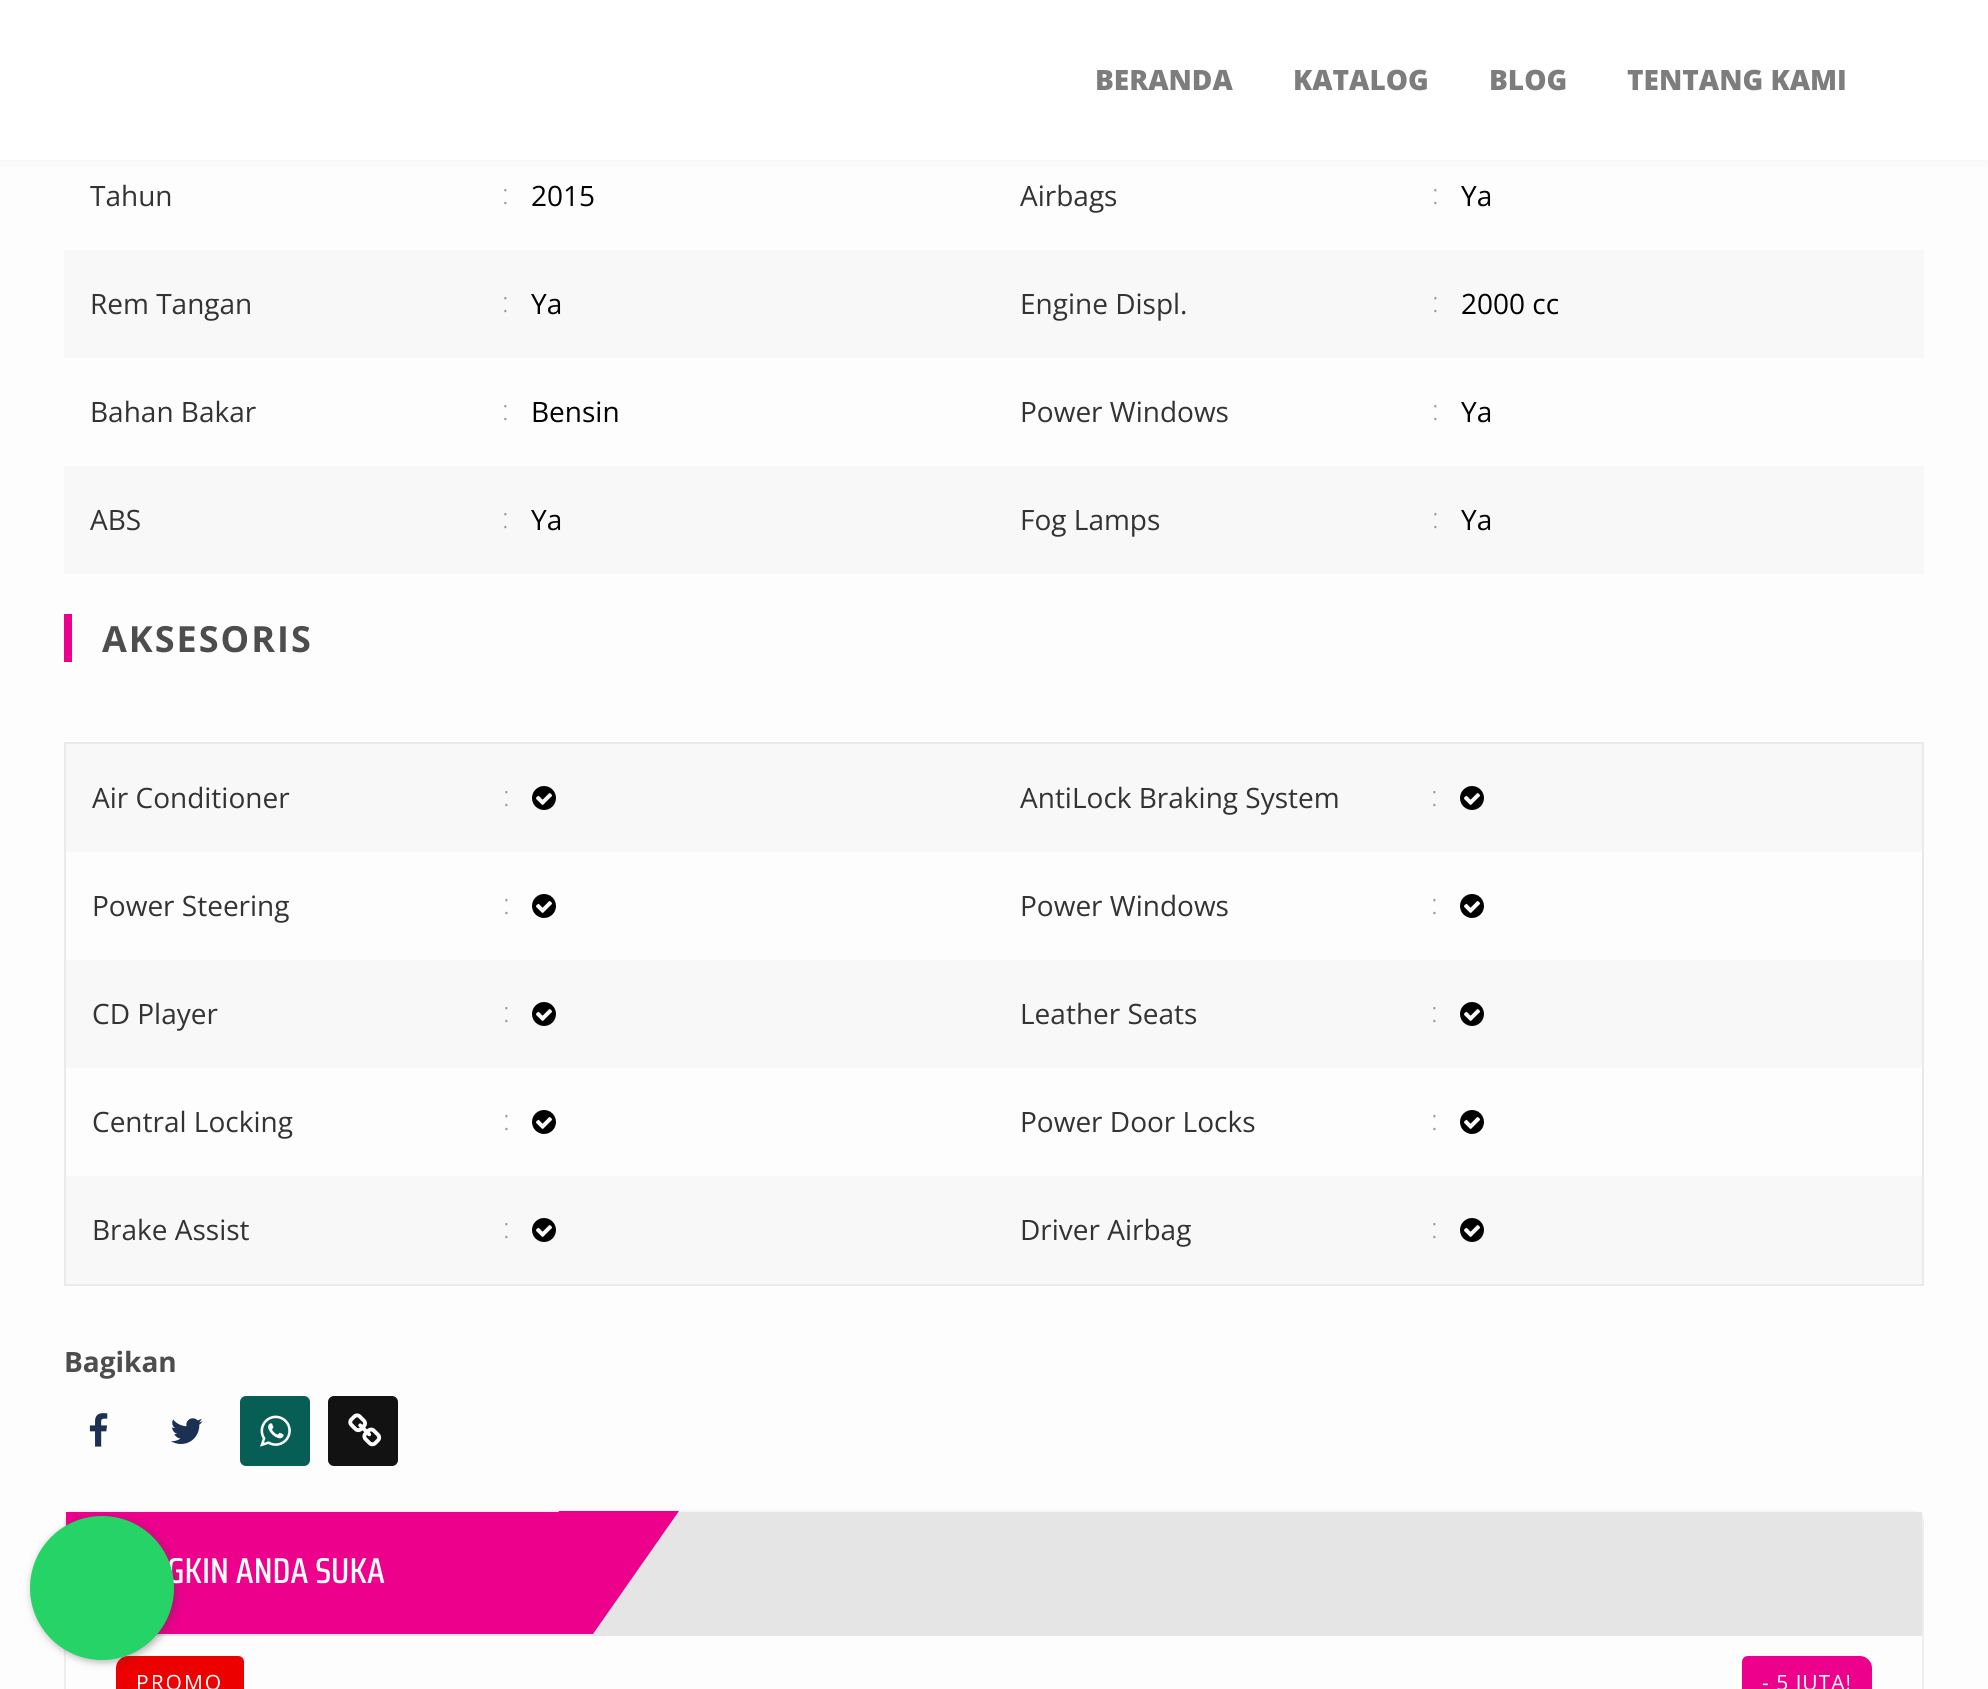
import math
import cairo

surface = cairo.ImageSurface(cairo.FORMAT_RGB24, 1988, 1689)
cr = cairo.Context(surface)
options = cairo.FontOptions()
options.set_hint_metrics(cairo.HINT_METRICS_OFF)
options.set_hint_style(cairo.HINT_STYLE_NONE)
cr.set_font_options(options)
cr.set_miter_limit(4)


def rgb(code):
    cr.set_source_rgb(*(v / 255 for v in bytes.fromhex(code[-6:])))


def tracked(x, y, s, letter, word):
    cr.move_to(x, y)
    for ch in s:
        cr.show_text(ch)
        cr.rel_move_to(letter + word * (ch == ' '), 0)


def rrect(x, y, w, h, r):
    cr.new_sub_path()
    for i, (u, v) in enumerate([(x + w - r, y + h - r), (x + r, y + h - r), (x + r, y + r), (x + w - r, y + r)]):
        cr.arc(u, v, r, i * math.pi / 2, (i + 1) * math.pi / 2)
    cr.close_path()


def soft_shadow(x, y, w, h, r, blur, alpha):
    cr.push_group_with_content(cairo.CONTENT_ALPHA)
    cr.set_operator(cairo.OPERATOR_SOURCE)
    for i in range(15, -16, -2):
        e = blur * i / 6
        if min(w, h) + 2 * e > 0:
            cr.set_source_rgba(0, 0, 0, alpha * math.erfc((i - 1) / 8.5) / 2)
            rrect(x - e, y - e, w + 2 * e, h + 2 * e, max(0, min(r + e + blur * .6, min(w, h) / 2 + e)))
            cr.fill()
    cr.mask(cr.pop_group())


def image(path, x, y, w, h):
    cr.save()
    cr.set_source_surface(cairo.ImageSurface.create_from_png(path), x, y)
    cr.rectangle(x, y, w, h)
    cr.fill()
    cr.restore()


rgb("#fdfdfd")
cr.paint()
rgb("#000000")
soft_shadow(0, 0, 1988, 160, 0, 5, 0.05)
for x, y, w, h, color in [
    (0, 0, 1988, 160, "#ffffff"),
    (64, 250, 1860, 108, "#f8f8f8"),
    (64, 466, 1860, 108, "#f8f8f8"),
    (64, 614, 8, 48, "#ec008c"),
]:
    rgb(color)
    cr.rectangle(x, y, w, h)
    cr.fill()
cr.rectangle(65, 743, 1858, 542)
rgb("#eaeaea")
cr.stroke()
rgb("#f8f8f8")
cr.rectangle(66, 744, 1856, 108)
cr.fill()
image("img/1.png", 532, 786, 24, 24)
image("img/1.png", 1460, 786, 24, 24)
image("img/2.png", 532, 894, 24, 24)
image("img/2.png", 1460, 894, 24, 24)
cr.rectangle(66, 960, 1856, 108)
cr.fill()
image("img/1.png", 532, 1002, 24, 24)
image("img/1.png", 1460, 1002, 24, 24)
image("img/2.png", 532, 1110, 24, 24)
image("img/2.png", 1460, 1110, 24, 24)
cr.rectangle(66, 1176, 1856, 108)
cr.fill()
image("img/1.png", 532, 1218, 24, 24)
image("img/1.png", 1460, 1218, 24, 24)
image("img/3.png", 89, 1413, 19, 34)
image("img/4.png", 171, 1418, 32, 26)
rgb("#075e54")
rrect(240, 1396, 70, 70, 6)
cr.fill()
image("img/5.png", 260, 1415, 31, 32)
rgb("#121212")
rrect(328, 1396, 70, 70, 6)
cr.fill()
image("img/6.png", 348, 1413, 34, 34)
cr.new_path()
cr.move_to(68, 1514)
cr.curve_to(70.5, 1512, 73, 1511, 76, 1511)
cr.line_to(1912, 1511)
cr.curve_to(1915, 1511, 1917.5, 1512, 1920, 1514)
rgb("#f5f5f5")
cr.stroke()
cr.new_path()
cr.move_to(68, 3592)
cr.curve_to(66, 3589.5, 65, 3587, 65, 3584)
cr.line_to(65, 1522)
cr.curve_to(65, 1519, 66, 1516.5, 68, 1514)
rgb("#eeeeee")
cr.stroke()
cr.new_path()
cr.move_to(1920, 1514)
cr.curve_to(1922, 1516.5, 1923, 1519, 1923, 1522)
cr.line_to(1923, 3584)
cr.curve_to(1923, 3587, 1922, 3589.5, 1920, 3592)
cr.stroke()
rgb("#e5e5e5")
cr.rectangle(155, 1512, 1767, 124)
cr.fill()
rgb("#ec008c")
cr.new_path()
cr.move_to(559, 1511)
cr.line_to(679, 1511)
cr.line_to(593, 1634)
cr.line_to(473, 1634)
cr.close_path()
cr.fill()
cr.rectangle(66, 1512, 493, 122)
cr.fill()
cr.save()
rrect(116, 1656, 1756, 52, 12)
cr.clip()
rgb("#ec0000")
cr.new_path()
cr.move_to(128, 1656)
cr.line_to(238, 1656)
cr.curve_to(241.5, 1656, 244, 1658.5, 244, 1662)
cr.line_to(244, 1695)
cr.curve_to(244, 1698.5, 241.5, 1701, 238, 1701)
cr.line_to(122, 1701)
cr.curve_to(118.5, 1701, 116, 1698.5, 116, 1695)
cr.line_to(116, 1668)
cr.curve_to(116, 1661.5, 121.5, 1656, 128, 1656)
cr.close_path()
cr.fill()
cr.restore()
rgb("#3c3c3c")
soft_shadow(32, 1518, 144, 144, 72, 4, 0.4)
cr.save()
rrect(116, 1656, 1756, 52, 12)
cr.clip()
rgb("#ec008c")
cr.new_path()
cr.move_to(1748, 1656)
cr.line_to(1860, 1656)
cr.curve_to(1866.5, 1656, 1872, 1661.5, 1872, 1668)
cr.line_to(1872, 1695)
cr.curve_to(1872, 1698.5, 1869.5, 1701, 1866, 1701)
cr.line_to(1748, 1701)
cr.curve_to(1744.5, 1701, 1742, 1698.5, 1742, 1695)
cr.line_to(1742, 1662)
cr.curve_to(1742, 1658.5, 1744.5, 1656, 1748, 1656)
cr.close_path()
cr.fill()
cr.restore()
cr.select_font_face("Open Sans ExtraBold")
cr.set_font_size(28)
rgb("#7d7d7d")
for x, y, s in [
    (1095, 90, "BERANDA"),
    (1293, 90, "KATALOG"),
    (1489, 90, "BLOG"),
    (1627, 90, "TENTANG KAMI"),
]:
    cr.move_to(x, y)
    cr.show_text(s)
cr.select_font_face("Open Sans")
rgb("#333333")
cr.move_to(90, 206)
cr.show_text("Tahun")
cr.select_font_face("Open Sans Light")
rgb("#999999")
cr.move_to(502, 204)
cr.show_text(":")
cr.select_font_face("Open Sans")
rgb("#000000")
cr.move_to(531, 206)
cr.show_text("2015")
rgb("#333333")
cr.move_to(1020, 206)
cr.show_text("Airbags")
cr.select_font_face("Open Sans Light")
rgb("#999999")
cr.move_to(1432, 204)
cr.show_text(":")
cr.select_font_face("Open Sans")
rgb("#000000")
cr.move_to(1461, 206)
cr.show_text("Ya")
rgb("#333333")
cr.move_to(90, 314)
cr.show_text("Rem Tangan")
cr.select_font_face("Open Sans Light")
rgb("#999999")
cr.move_to(502, 312)
cr.show_text(":")
cr.select_font_face("Open Sans")
rgb("#000000")
cr.move_to(531, 314)
cr.show_text("Ya")
rgb("#333333")
cr.move_to(1020, 314)
cr.show_text("Engine Displ.")
cr.select_font_face("Open Sans Light")
rgb("#999999")
cr.move_to(1432, 312)
cr.show_text(":")
cr.select_font_face("Open Sans")
rgb("#000000")
cr.move_to(1461, 314)
cr.show_text("2000 cc")
rgb("#333333")
cr.move_to(90, 422)
cr.show_text("Bahan Bakar")
cr.select_font_face("Open Sans Light")
rgb("#999999")
cr.move_to(502, 420)
cr.show_text(":")
cr.select_font_face("Open Sans")
rgb("#000000")
cr.move_to(531, 422)
cr.show_text("Bensin")
rgb("#333333")
cr.move_to(1020, 422)
cr.show_text("Power Windows")
cr.select_font_face("Open Sans Light")
rgb("#999999")
cr.move_to(1432, 420)
cr.show_text(":")
cr.select_font_face("Open Sans")
rgb("#000000")
cr.move_to(1461, 422)
cr.show_text("Ya")
rgb("#333333")
cr.move_to(90, 530)
cr.show_text("ABS")
cr.select_font_face("Open Sans Light")
rgb("#999999")
cr.move_to(502, 528)
cr.show_text(":")
cr.select_font_face("Open Sans")
rgb("#000000")
cr.move_to(531, 530)
cr.show_text("Ya")
rgb("#333333")
cr.move_to(1020, 530)
cr.show_text("Fog Lamps")
cr.select_font_face("Open Sans Light")
rgb("#999999")
cr.move_to(1432, 528)
cr.show_text(":")
cr.select_font_face("Open Sans")
rgb("#000000")
cr.move_to(1461, 530)
cr.show_text("Ya")
cr.select_font_face("Open Sans", cairo.FONT_SLANT_NORMAL, cairo.FONT_WEIGHT_BOLD)
cr.set_font_size(36)
rgb("#4d4d4d")
tracked(102, 652, "AKSESORIS", 2, 0)
cr.select_font_face("Open Sans")
cr.set_font_size(28)
rgb("#333333")
cr.move_to(92, 808)
cr.show_text("Air Conditioner")
cr.select_font_face("Open Sans Light")
rgb("#999999")
cr.move_to(503, 806)
cr.show_text(":")
cr.select_font_face("Open Sans")
rgb("#333333")
cr.move_to(1020, 808)
cr.show_text("AntiLock Braking System")
cr.select_font_face("Open Sans Light")
rgb("#999999")
cr.move_to(1431, 806)
cr.show_text(":")
cr.select_font_face("Open Sans")
rgb("#333333")
cr.move_to(92, 916)
cr.show_text("Power Steering")
cr.select_font_face("Open Sans Light")
rgb("#999999")
cr.move_to(503, 914)
cr.show_text(":")
cr.select_font_face("Open Sans")
rgb("#333333")
cr.move_to(1020, 916)
cr.show_text("Power Windows")
cr.select_font_face("Open Sans Light")
rgb("#999999")
cr.move_to(1431, 914)
cr.show_text(":")
cr.select_font_face("Open Sans")
rgb("#333333")
cr.move_to(92, 1024)
cr.show_text("CD Player")
cr.select_font_face("Open Sans Light")
rgb("#999999")
cr.move_to(503, 1022)
cr.show_text(":")
cr.select_font_face("Open Sans")
rgb("#333333")
cr.move_to(1020, 1024)
cr.show_text("Leather Seats")
cr.select_font_face("Open Sans Light")
rgb("#999999")
cr.move_to(1431, 1022)
cr.show_text(":")
cr.select_font_face("Open Sans")
rgb("#333333")
cr.move_to(92, 1132)
cr.show_text("Central Locking")
cr.select_font_face("Open Sans Light")
rgb("#999999")
cr.move_to(503, 1130)
cr.show_text(":")
cr.select_font_face("Open Sans")
rgb("#333333")
cr.move_to(1020, 1132)
cr.show_text("Power Door Locks")
cr.select_font_face("Open Sans Light")
rgb("#999999")
cr.move_to(1431, 1130)
cr.show_text(":")
cr.select_font_face("Open Sans")
rgb("#333333")
cr.move_to(92, 1240)
cr.show_text("Brake Assist")
cr.select_font_face("Open Sans Light")
rgb("#999999")
cr.move_to(503, 1238)
cr.show_text(":")
cr.select_font_face("Open Sans")
rgb("#333333")
cr.move_to(1020, 1240)
cr.show_text("Driver Airbag")
cr.select_font_face("Open Sans Light")
rgb("#999999")
cr.move_to(1431, 1238)
cr.show_text(":")
cr.select_font_face("Open Sans", cairo.FONT_SLANT_NORMAL, cairo.FONT_WEIGHT_BOLD)
rgb("#4d4d4d")
cr.move_to(64, 1372)
cr.show_text("Bagikan")
cr.select_font_face("Saira Condensed Medium")
cr.set_font_size(36)
rgb("#ffffff")
cr.move_to(167, 1583)
cr.show_text("GKIN ANDA SUKA")
rgb("#25d366")
cr.new_path()
cr.arc(102, 1588, 72, 0, 2 * math.pi)
cr.fill()
cr.select_font_face("Open Sans")
cr.set_font_size(21)
rgb("#ffffff")
tracked(136, 1690, "PROMO", 2, 0)
tracked(1762, 1690, "- 5 JUTA!", 1, 0)
surface.write_to_png("page.png")
